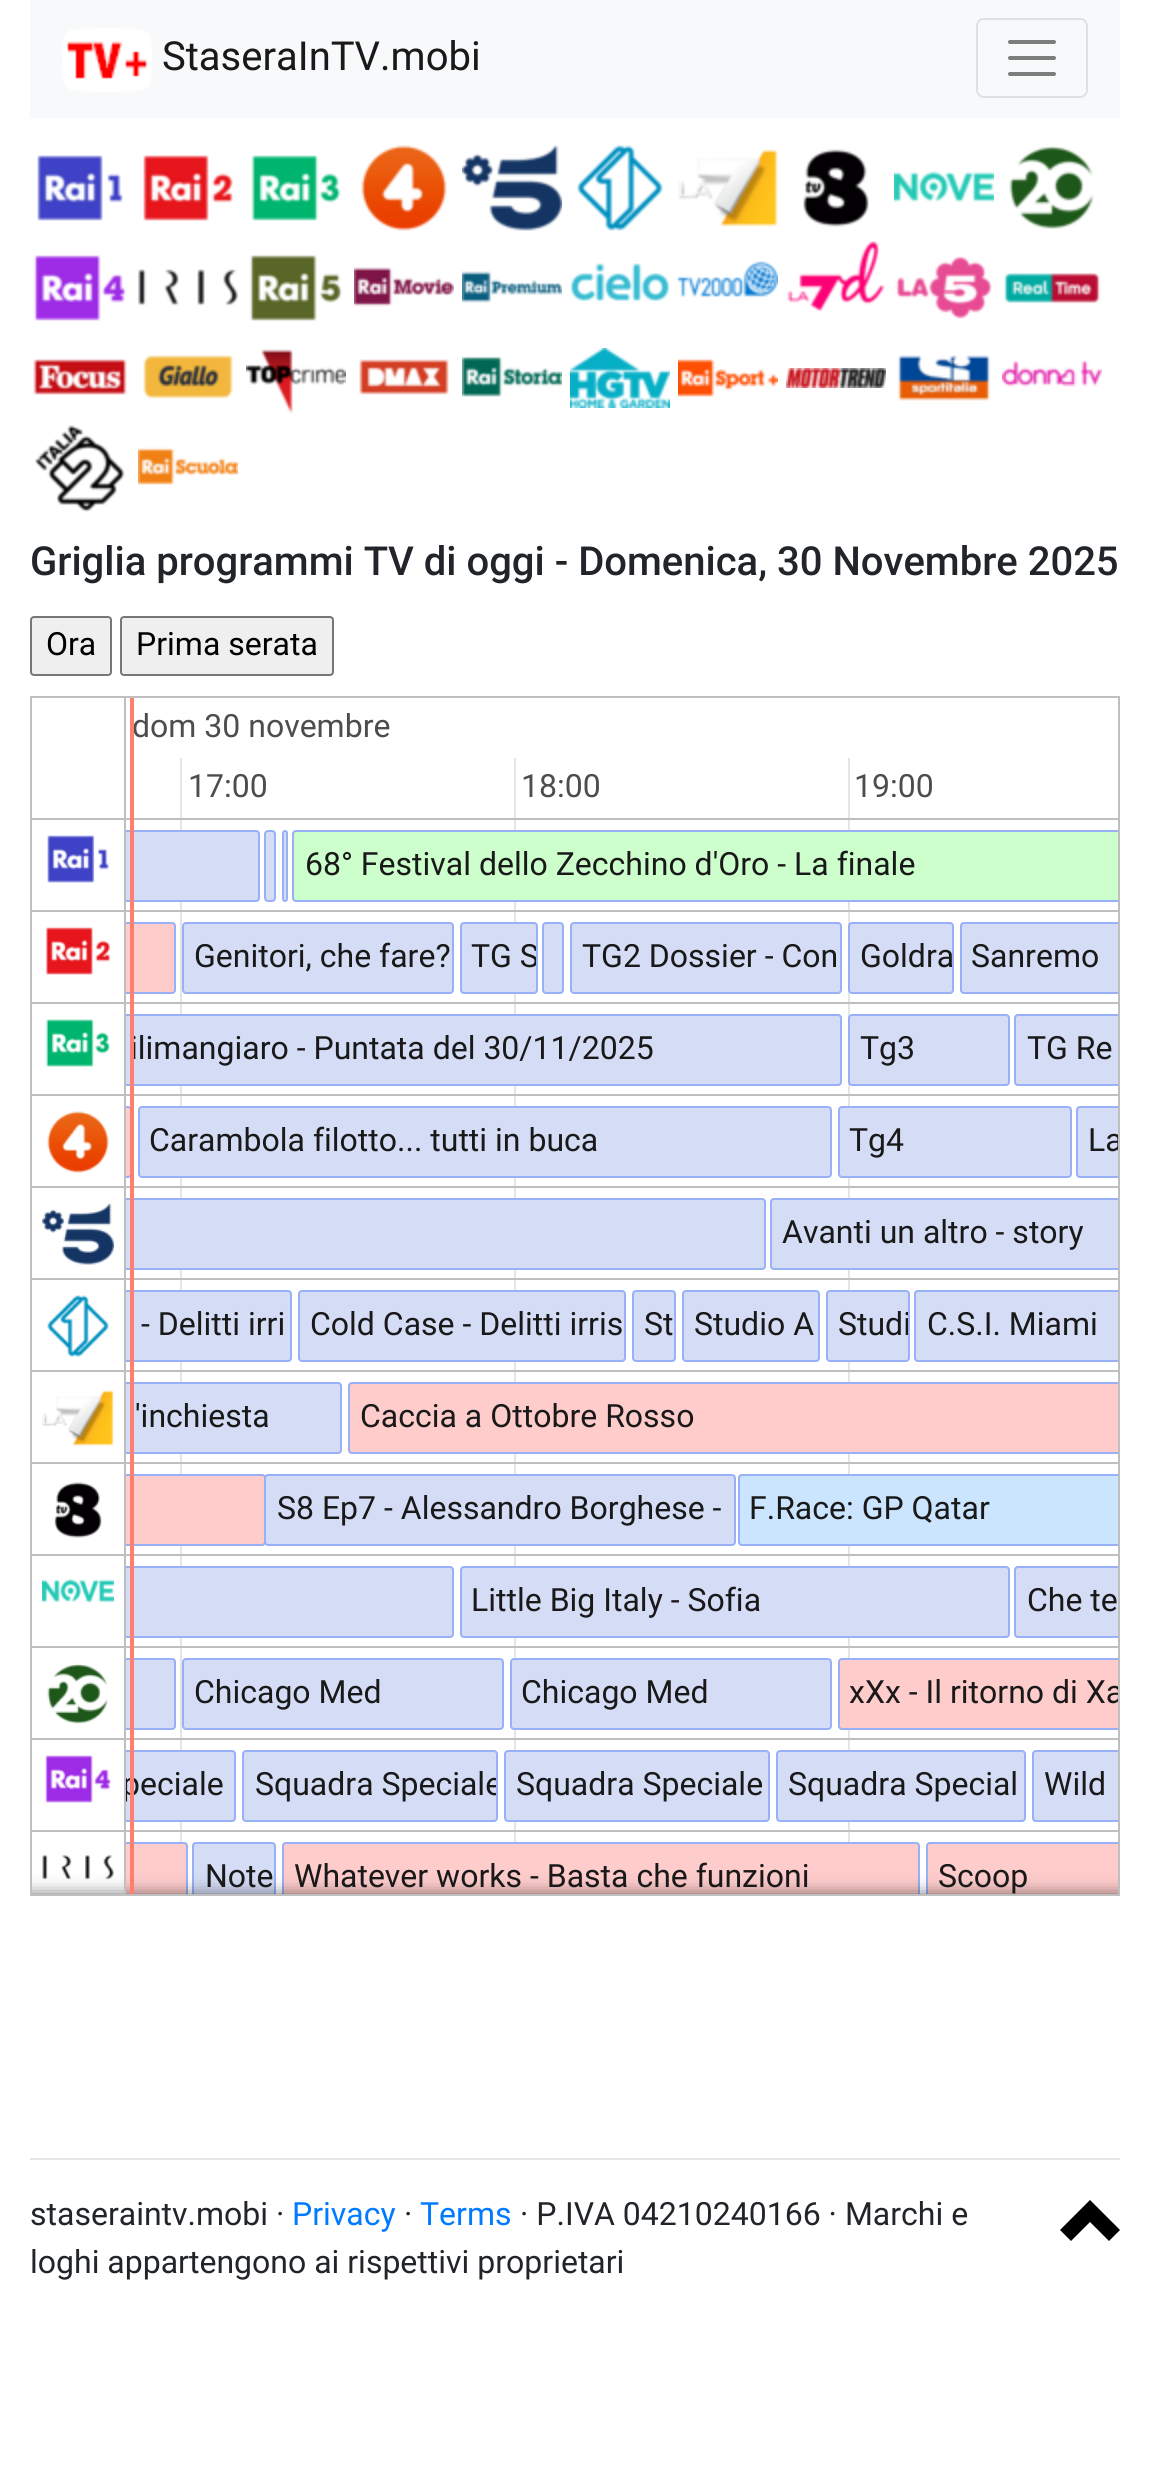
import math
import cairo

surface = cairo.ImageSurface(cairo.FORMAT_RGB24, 1149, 2466)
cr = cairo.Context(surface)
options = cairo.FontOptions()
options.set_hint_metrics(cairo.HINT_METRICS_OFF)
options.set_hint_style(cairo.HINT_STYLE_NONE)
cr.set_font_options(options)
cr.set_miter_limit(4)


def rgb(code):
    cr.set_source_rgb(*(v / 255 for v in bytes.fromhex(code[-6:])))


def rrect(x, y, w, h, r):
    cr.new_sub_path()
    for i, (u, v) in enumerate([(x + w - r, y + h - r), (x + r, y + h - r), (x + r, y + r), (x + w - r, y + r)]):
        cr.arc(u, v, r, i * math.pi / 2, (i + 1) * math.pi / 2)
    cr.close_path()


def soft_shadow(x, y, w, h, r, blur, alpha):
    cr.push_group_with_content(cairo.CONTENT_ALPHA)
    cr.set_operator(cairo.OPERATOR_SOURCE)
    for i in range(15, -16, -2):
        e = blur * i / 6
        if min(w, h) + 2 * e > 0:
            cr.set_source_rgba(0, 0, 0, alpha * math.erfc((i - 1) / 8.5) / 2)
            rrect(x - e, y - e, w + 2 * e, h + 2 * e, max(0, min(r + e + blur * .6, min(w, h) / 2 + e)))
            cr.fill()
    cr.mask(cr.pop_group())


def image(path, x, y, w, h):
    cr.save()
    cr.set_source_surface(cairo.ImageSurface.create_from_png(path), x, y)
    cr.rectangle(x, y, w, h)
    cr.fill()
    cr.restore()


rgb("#ffffff")
cr.paint()
rgb("#f8f9fa")
cr.rectangle(30, 0, 1090, 118)
cr.fill()
image("img/1.png", 62, 28, 90, 64)
rrect(977, 19, 110, 78, 7)
rgb("#dfe0e1")
cr.stroke()
cr.new_path()
cr.move_to(1010, 42)
cr.line_to(1054, 42)
cr.move_to(1010, 58)
cr.line_to(1054, 58)
cr.move_to(1010, 74)
cr.line_to(1054, 74)
rgb("#7c7d7d")
cr.set_line_width(4)
cr.set_line_cap(cairo.LINE_CAP_ROUND)
cr.stroke()
image("img/2.png", 37, 155, 86, 66)
image("img/3.png", 143, 155, 90, 66)
image("img/4.png", 251, 155, 90, 66)
image("img/5.png", 361, 145, 86, 86)
image("img/6.png", 462, 145, 100, 86)
image("img/7.png", 577, 145, 86, 86)
image("img/8.png", 678, 149, 100, 78)
image("img/9.png", 803, 149, 66, 78)
image("img/10.png", 894, 171, 100, 32)
image("img/11.png", 1009, 146, 85, 83)
image("img/12.png", 33, 255, 94, 66)
image("img/13.png", 138, 269, 100, 37)
image("img/14.png", 249, 255, 94, 66)
image("img/15.png", 354, 267, 100, 40)
image("img/16.png", 462, 271, 100, 32)
image("img/17.png", 570, 263, 100, 39)
image("img/18.png", 678, 261, 100, 37)
image("img/19.png", 787, 241, 98, 71)
image("img/20.png", 895, 255, 98, 64)
image("img/21.png", 1003, 272, 98, 32)
image("img/22.png", 33, 359, 94, 36)
image("img/23.png", 143, 355, 90, 44)
image("img/24.png", 246, 349, 100, 64)
image("img/25.png", 359, 359, 90, 36)
image("img/26.png", 462, 356, 100, 41)
image("img/27.png", 570, 348, 100, 60)
image("img/28.png", 678, 359, 100, 38)
image("img/29.png", 786, 368, 100, 20)
image("img/30.png", 897, 355, 94, 46)
image("img/31.png", 1002, 360, 100, 27)
image("img/32.png", 35, 425, 90, 87)
image("img/33.png", 138, 447, 100, 38)
rgb("#efefef")
rrect(31, 617, 80, 58, 3)
cr.fill_preserve()
rgb("#767676")
cr.set_line_width(2)
cr.set_line_cap(cairo.LINE_CAP_BUTT)
cr.stroke()
rgb("#efefef")
rrect(121, 617, 212, 58, 3)
cr.fill_preserve()
rgb("#767676")
cr.stroke()
cr.rectangle(31, 697, 1088, 1198)
rgb("#bfbfbf")
cr.stroke()
for x, y, w, h, color in [
    (180, 758, 2, 1084, "#e5e5e5"),
    (514, 758, 2, 1084, "#e5e5e5"),
    (848, 758, 2, 1084, "#e5e5e5"),
    (124, 698, 2, 120, "#bfbfbf"),
    (32, 818, 92, 2, "#bfbfbf"),
    (32, 910, 92, 2, "#bfbfbf"),
]:
    rgb(color)
    cr.rectangle(x, y, w, h)
    cr.fill()
cr.save()
cr.rectangle(32, 698, 1086, 1196)
cr.clip()
cr.rectangle(125, 819, 998, 1080)
cr.stroke()
cr.restore()
rgb("#d5ddf6")
cr.new_path()
cr.move_to(126, 830)
cr.line_to(256, 830)
cr.curve_to(258, 830, 260, 832, 260, 834)
cr.line_to(260, 898)
cr.curve_to(260, 900, 258, 902, 256, 902)
cr.line_to(126, 902)
cr.close_path()
cr.fill()
cr.save()
cr.rectangle(126, 820, 992, 1074)
cr.clip()
rrect(-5, 831, 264, 70, 3)
rgb("#97b0f8")
cr.stroke()
cr.restore()
image("img/34.png", 47, 835, 62, 48)
rgb("#bfbfbf")
cr.rectangle(32, 1002, 92, 2)
cr.fill()
rgb("#ffcccc")
cr.new_path()
cr.move_to(126, 922)
cr.line_to(172, 922)
cr.curve_to(174, 922, 176, 924, 176, 926)
cr.line_to(176, 990)
cr.curve_to(176, 992, 174, 994, 172, 994)
cr.line_to(126, 994)
cr.close_path()
cr.fill()
cr.save()
cr.rectangle(126, 820, 992, 1074)
cr.clip()
rrect(-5, 923, 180, 70, 3)
rgb("#97b0f8")
cr.stroke()
cr.restore()
image("img/35.png", 46, 927, 64, 48)
rgb("#bfbfbf")
cr.rectangle(32, 1094, 92, 2)
cr.fill()
rgb("#d5ddf6")
cr.new_path()
cr.move_to(126, 1014)
cr.line_to(838, 1014)
cr.curve_to(840, 1014, 842, 1016, 842, 1018)
cr.line_to(842, 1082)
cr.curve_to(842, 1084, 840, 1086, 838, 1086)
cr.line_to(126, 1086)
cr.close_path()
cr.fill()
cr.save()
cr.rectangle(126, 820, 992, 1074)
cr.clip()
rrect(99, 1015, 742, 70, 3)
rgb("#97b0f8")
cr.stroke()
cr.restore()
image("img/36.png", 46, 1019, 64, 48)
rgb("#bfbfbf")
cr.rectangle(32, 1186, 92, 2)
cr.fill()
rgb("#ffcccc")
cr.new_path()
cr.move_to(126, 1106)
cr.line_to(128, 1106)
cr.curve_to(130, 1106, 132, 1108, 132, 1110)
cr.line_to(132, 1174)
cr.curve_to(132, 1176, 130, 1178, 128, 1178)
cr.line_to(126, 1178)
cr.close_path()
cr.fill()
cr.save()
cr.rectangle(126, 820, 992, 1074)
cr.clip()
rrect(-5, 1107, 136, 70, 3)
rgb("#97b0f8")
cr.stroke()
cr.restore()
image("img/37.png", 47, 1111, 62, 62)
rgb("#bfbfbf")
cr.rectangle(32, 1278, 92, 2)
cr.fill()
rgb("#d5ddf6")
cr.new_path()
cr.move_to(126, 1198)
cr.line_to(762, 1198)
cr.curve_to(764, 1198, 766, 1200, 766, 1202)
cr.line_to(766, 1266)
cr.curve_to(766, 1268, 764, 1270, 762, 1270)
cr.line_to(126, 1270)
cr.close_path()
cr.fill()
cr.save()
cr.rectangle(126, 820, 992, 1074)
cr.clip()
rrect(-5, 1199, 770, 70, 3)
rgb("#97b0f8")
cr.stroke()
cr.restore()
image("img/38.png", 42, 1203, 72, 62)
rgb("#bfbfbf")
cr.rectangle(32, 1370, 92, 2)
cr.fill()
rgb("#d5ddf6")
cr.new_path()
cr.move_to(126, 1290)
cr.line_to(288, 1290)
cr.curve_to(290, 1290, 292, 1292, 292, 1294)
cr.line_to(292, 1358)
cr.curve_to(292, 1360, 290, 1362, 288, 1362)
cr.line_to(126, 1362)
cr.close_path()
cr.fill()
cr.save()
cr.rectangle(126, 820, 992, 1074)
cr.clip()
rrect(-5, 1291, 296, 70, 3)
rgb("#97b0f8")
cr.stroke()
cr.restore()
image("img/39.png", 47, 1295, 62, 62)
rgb("#bfbfbf")
cr.rectangle(32, 1462, 92, 2)
cr.fill()
rgb("#d5ddf6")
cr.new_path()
cr.move_to(126, 1382)
cr.line_to(338, 1382)
cr.curve_to(340, 1382, 342, 1384, 342, 1386)
cr.line_to(342, 1450)
cr.curve_to(342, 1452, 340, 1454, 338, 1454)
cr.line_to(126, 1454)
cr.close_path()
cr.fill()
cr.save()
cr.rectangle(126, 820, 992, 1074)
cr.clip()
rrect(15, 1383, 326, 70, 3)
rgb("#97b0f8")
cr.stroke()
cr.restore()
image("img/40.png", 42, 1390, 72, 56)
rgb("#bfbfbf")
cr.rectangle(32, 1554, 92, 2)
cr.fill()
rgb("#ffcccc")
cr.new_path()
cr.move_to(126, 1474)
cr.line_to(262, 1474)
cr.curve_to(264, 1474, 266, 1476, 266, 1478)
cr.line_to(266, 1542)
cr.curve_to(266, 1544, 264, 1546, 262, 1546)
cr.line_to(126, 1546)
cr.close_path()
cr.fill()
cr.save()
cr.rectangle(126, 820, 992, 1074)
cr.clip()
rrect(-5, 1475, 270, 70, 3)
rgb("#97b0f8")
cr.stroke()
cr.restore()
image("img/41.png", 54, 1482, 48, 56)
rgb("#bfbfbf")
cr.rectangle(32, 1646, 92, 2)
cr.fill()
rgb("#d5ddf6")
cr.new_path()
cr.move_to(126, 1566)
cr.line_to(450, 1566)
cr.curve_to(452, 1566, 454, 1568, 454, 1570)
cr.line_to(454, 1634)
cr.curve_to(454, 1636, 452, 1638, 450, 1638)
cr.line_to(126, 1638)
cr.close_path()
cr.fill()
cr.save()
cr.rectangle(126, 820, 992, 1074)
cr.clip()
rrect(-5, 1567, 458, 70, 3)
rgb("#97b0f8")
cr.stroke()
cr.restore()
image("img/42.png", 42, 1579, 72, 24)
rgb("#bfbfbf")
cr.rectangle(32, 1738, 92, 2)
cr.fill()
rgb("#d5ddf6")
cr.new_path()
cr.move_to(126, 1658)
cr.line_to(172, 1658)
cr.curve_to(174, 1658, 176, 1660, 176, 1662)
cr.line_to(176, 1726)
cr.curve_to(176, 1728, 174, 1730, 172, 1730)
cr.line_to(126, 1730)
cr.close_path()
cr.fill()
cr.save()
cr.rectangle(126, 820, 992, 1074)
cr.clip()
rrect(-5, 1659, 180, 70, 3)
rgb("#97b0f8")
cr.stroke()
cr.restore()
image("img/43.png", 47, 1663, 62, 61)
rgb("#bfbfbf")
cr.rectangle(32, 1830, 92, 2)
cr.fill()
rgb("#d5ddf6")
cr.new_path()
cr.move_to(126, 1750)
cr.line_to(232, 1750)
cr.curve_to(234, 1750, 236, 1752, 236, 1754)
cr.line_to(236, 1818)
cr.curve_to(236, 1820, 234, 1822, 232, 1822)
cr.line_to(126, 1822)
cr.close_path()
cr.fill()
cr.save()
cr.rectangle(126, 820, 992, 1074)
cr.clip()
rrect(-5, 1751, 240, 70, 3)
rgb("#97b0f8")
cr.stroke()
cr.restore()
image("img/44.png", 45, 1755, 67, 48)
rgb("#ffcccc")
cr.new_path()
cr.move_to(126, 1842)
cr.line_to(184, 1842)
cr.curve_to(186, 1842, 188, 1844, 188, 1846)
cr.line_to(188, 1894)
cr.line_to(126, 1894)
cr.close_path()
cr.fill()
cr.save()
cr.rectangle(126, 820, 992, 1074)
cr.clip()
rrect(-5, 1843, 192, 70, 3)
rgb("#97b0f8")
cr.stroke()
cr.restore()
rgb("#d5ddf6")
cr.new_path()
cr.move_to(196, 1842)
cr.line_to(272, 1842)
cr.curve_to(274, 1842, 276, 1844, 276, 1846)
cr.line_to(276, 1894)
cr.line_to(192, 1894)
cr.line_to(192, 1846)
cr.curve_to(192, 1844, 194, 1842, 196, 1842)
cr.close_path()
cr.fill()
cr.save()
cr.rectangle(126, 820, 992, 1074)
cr.clip()
rrect(193, 1843, 82, 70, 3)
rgb("#97b0f8")
cr.stroke()
cr.restore()
rgb("#ffcccc")
cr.new_path()
cr.move_to(286, 1842)
cr.line_to(916, 1842)
cr.curve_to(918, 1842, 920, 1844, 920, 1846)
cr.line_to(920, 1894)
cr.line_to(282, 1894)
cr.line_to(282, 1846)
cr.curve_to(282, 1844, 284, 1842, 286, 1842)
cr.close_path()
cr.fill()
cr.save()
cr.rectangle(126, 820, 992, 1074)
cr.clip()
rrect(283, 1843, 636, 70, 3)
rgb("#97b0f8")
cr.stroke()
cr.restore()
cr.new_path()
cr.move_to(930, 1842)
cr.line_to(1118, 1842)
cr.line_to(1118, 1894)
cr.line_to(926, 1894)
cr.line_to(926, 1846)
cr.curve_to(926, 1844, 928, 1842, 930, 1842)
cr.close_path()
cr.fill()
cr.save()
cr.rectangle(126, 820, 992, 1074)
cr.clip()
rrect(927, 1843, 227, 70, 3)
rgb("#97b0f8")
cr.stroke()
cr.restore()
cr.save()
cr.rectangle(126, 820, 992, 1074)
cr.clip()
rgb("#000000")
soft_shadow(126, 1898, 996, 2, 0, 10, 0.8)
cr.restore()
image("img/45.png", 42, 1855, 72, 25)
cr.save()
cr.rectangle(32, 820, 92, 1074)
cr.clip()
rgb("#000000")
soft_shadow(32, 1898, 92, 2, 0, 10, 0.8)
cr.restore()
rgb("#bfbfbf")
cr.rectangle(126, 910, 992, 2)
cr.fill()
rgb("#d5ddf6")
rrect(265, 831, 10, 70, 3)
cr.fill_preserve()
rgb("#97b0f8")
cr.stroke()
rgb("#d5ddf6")
rrect(283, 831, 4, 70, 2)
cr.fill_preserve()
rgb("#97b0f8")
cr.stroke()
rgb("#ccffcc")
cr.new_path()
cr.move_to(296, 830)
cr.line_to(1118, 830)
cr.line_to(1118, 902)
cr.line_to(296, 902)
cr.curve_to(294, 902, 292, 900, 292, 898)
cr.line_to(292, 834)
cr.curve_to(292, 832, 294, 830, 296, 830)
cr.close_path()
cr.fill()
cr.save()
cr.rectangle(126, 820, 992, 1074)
cr.clip()
rrect(293, 831, 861, 70, 3)
rgb("#97b0f8")
cr.stroke()
cr.restore()
rgb("#bfbfbf")
cr.rectangle(126, 1002, 992, 2)
cr.fill()
rgb("#d5ddf6")
rrect(183, 923, 270, 70, 3)
cr.fill_preserve()
rgb("#97b0f8")
cr.stroke()
rgb("#d5ddf6")
rrect(461, 923, 76, 70, 3)
cr.fill_preserve()
rgb("#97b0f8")
cr.stroke()
rgb("#d5ddf6")
rrect(543, 923, 20, 70, 3)
cr.fill_preserve()
rgb("#97b0f8")
cr.stroke()
rgb("#d5ddf6")
rrect(571, 923, 270, 70, 3)
cr.fill_preserve()
rgb("#97b0f8")
cr.stroke()
rgb("#d5ddf6")
rrect(849, 923, 104, 70, 3)
cr.fill_preserve()
rgb("#97b0f8")
cr.stroke()
rgb("#d5ddf6")
cr.new_path()
cr.move_to(964, 922)
cr.line_to(1118, 922)
cr.line_to(1118, 994)
cr.line_to(964, 994)
cr.curve_to(962, 994, 960, 992, 960, 990)
cr.line_to(960, 926)
cr.curve_to(960, 924, 962, 922, 964, 922)
cr.close_path()
cr.fill()
cr.save()
cr.rectangle(126, 820, 992, 1074)
cr.clip()
rrect(961, 923, 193, 70, 3)
rgb("#97b0f8")
cr.stroke()
cr.restore()
rgb("#bfbfbf")
cr.rectangle(126, 1094, 992, 2)
cr.fill()
rgb("#d5ddf6")
rrect(849, 1015, 160, 70, 3)
cr.fill_preserve()
rgb("#97b0f8")
cr.stroke()
rgb("#d5ddf6")
cr.new_path()
cr.move_to(1018, 1014)
cr.line_to(1118, 1014)
cr.line_to(1118, 1086)
cr.line_to(1018, 1086)
cr.curve_to(1016, 1086, 1014, 1084, 1014, 1082)
cr.line_to(1014, 1018)
cr.curve_to(1014, 1016, 1016, 1014, 1018, 1014)
cr.close_path()
cr.fill()
cr.save()
cr.rectangle(126, 820, 992, 1074)
cr.clip()
rrect(1015, 1015, 110, 70, 3)
rgb("#97b0f8")
cr.stroke()
cr.restore()
rgb("#bfbfbf")
cr.rectangle(126, 1186, 992, 2)
cr.fill()
rgb("#d5ddf6")
rrect(139, 1107, 692, 70, 3)
cr.fill_preserve()
rgb("#97b0f8")
cr.stroke()
rgb("#d5ddf6")
rrect(839, 1107, 232, 70, 3)
cr.fill_preserve()
rgb("#97b0f8")
cr.stroke()
rgb("#d5ddf6")
cr.new_path()
cr.move_to(1080, 1106)
cr.line_to(1118, 1106)
cr.line_to(1118, 1178)
cr.line_to(1080, 1178)
cr.curve_to(1078, 1178, 1076, 1176, 1076, 1174)
cr.line_to(1076, 1110)
cr.curve_to(1076, 1108, 1078, 1106, 1080, 1106)
cr.close_path()
cr.fill()
cr.save()
cr.rectangle(126, 820, 992, 1074)
cr.clip()
rrect(1077, 1107, 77, 70, 3)
rgb("#97b0f8")
cr.stroke()
cr.restore()
rgb("#bfbfbf")
cr.rectangle(126, 1278, 992, 2)
cr.fill()
rgb("#d5ddf6")
cr.new_path()
cr.move_to(774, 1198)
cr.line_to(1118, 1198)
cr.line_to(1118, 1270)
cr.line_to(774, 1270)
cr.curve_to(772, 1270, 770, 1268, 770, 1266)
cr.line_to(770, 1202)
cr.curve_to(770, 1200, 772, 1198, 774, 1198)
cr.close_path()
cr.fill()
cr.save()
cr.rectangle(126, 820, 992, 1074)
cr.clip()
rrect(771, 1199, 370, 70, 3)
rgb("#97b0f8")
cr.stroke()
cr.restore()
rgb("#bfbfbf")
cr.rectangle(126, 1370, 992, 2)
cr.fill()
rgb("#d5ddf6")
rrect(299, 1291, 326, 70, 3)
cr.fill_preserve()
rgb("#97b0f8")
cr.stroke()
rgb("#d5ddf6")
rrect(633, 1291, 42, 70, 3)
cr.fill_preserve()
rgb("#97b0f8")
cr.stroke()
rgb("#d5ddf6")
rrect(683, 1291, 136, 70, 3)
cr.fill_preserve()
rgb("#97b0f8")
cr.stroke()
rgb("#d5ddf6")
rrect(827, 1291, 82, 70, 3)
cr.fill_preserve()
rgb("#97b0f8")
cr.stroke()
rgb("#d5ddf6")
cr.new_path()
cr.move_to(918, 1290)
cr.line_to(1118, 1290)
cr.line_to(1118, 1362)
cr.line_to(918, 1362)
cr.curve_to(916, 1362, 914, 1360, 914, 1358)
cr.line_to(914, 1294)
cr.curve_to(914, 1292, 916, 1290, 918, 1290)
cr.close_path()
cr.fill()
cr.save()
cr.rectangle(126, 820, 992, 1074)
cr.clip()
rrect(915, 1291, 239, 70, 3)
rgb("#97b0f8")
cr.stroke()
cr.restore()
rgb("#bfbfbf")
cr.rectangle(126, 1462, 992, 2)
cr.fill()
rgb("#ffcccc")
cr.new_path()
cr.move_to(352, 1382)
cr.line_to(1118, 1382)
cr.line_to(1118, 1454)
cr.line_to(352, 1454)
cr.curve_to(350, 1454, 348, 1452, 348, 1450)
cr.line_to(348, 1386)
cr.curve_to(348, 1384, 350, 1382, 352, 1382)
cr.close_path()
cr.fill()
cr.save()
cr.rectangle(126, 820, 992, 1074)
cr.clip()
rrect(349, 1383, 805, 70, 3)
rgb("#97b0f8")
cr.stroke()
cr.restore()
rgb("#bfbfbf")
cr.rectangle(126, 1554, 992, 2)
cr.fill()
rgb("#d5ddf6")
rrect(265, 1475, 470, 70, 3)
cr.fill_preserve()
rgb("#97b0f8")
cr.stroke()
rgb("#cce5ff")
cr.new_path()
cr.move_to(742, 1474)
cr.line_to(1118, 1474)
cr.line_to(1118, 1546)
cr.line_to(742, 1546)
cr.curve_to(740, 1546, 738, 1544, 738, 1542)
cr.line_to(738, 1478)
cr.curve_to(738, 1476, 740, 1474, 742, 1474)
cr.close_path()
cr.fill()
cr.save()
cr.rectangle(126, 820, 992, 1074)
cr.clip()
rrect(739, 1475, 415, 70, 3)
rgb("#97b0f8")
cr.stroke()
cr.restore()
rgb("#bfbfbf")
cr.rectangle(126, 1646, 992, 2)
cr.fill()
rgb("#d5ddf6")
rrect(461, 1567, 548, 70, 3)
cr.fill_preserve()
rgb("#97b0f8")
cr.stroke()
rgb("#d5ddf6")
cr.new_path()
cr.move_to(1018, 1566)
cr.line_to(1118, 1566)
cr.line_to(1118, 1638)
cr.line_to(1018, 1638)
cr.curve_to(1016, 1638, 1014, 1636, 1014, 1634)
cr.line_to(1014, 1570)
cr.curve_to(1014, 1568, 1016, 1566, 1018, 1566)
cr.close_path()
cr.fill()
cr.save()
cr.rectangle(126, 820, 992, 1074)
cr.clip()
rrect(1015, 1567, 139, 70, 3)
rgb("#97b0f8")
cr.stroke()
cr.restore()
rgb("#bfbfbf")
cr.rectangle(126, 1738, 992, 2)
cr.fill()
rgb("#d5ddf6")
rrect(183, 1659, 320, 70, 3)
cr.fill_preserve()
rgb("#97b0f8")
cr.stroke()
rgb("#d5ddf6")
rrect(511, 1659, 320, 70, 3)
cr.fill_preserve()
rgb("#97b0f8")
cr.stroke()
rgb("#ffcccc")
cr.new_path()
cr.move_to(842, 1658)
cr.line_to(1118, 1658)
cr.line_to(1118, 1730)
cr.line_to(842, 1730)
cr.curve_to(840, 1730, 838, 1728, 838, 1726)
cr.line_to(838, 1662)
cr.curve_to(838, 1660, 840, 1658, 842, 1658)
cr.close_path()
cr.fill()
cr.save()
cr.rectangle(126, 820, 992, 1074)
cr.clip()
rrect(839, 1659, 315, 70, 3)
rgb("#97b0f8")
cr.stroke()
cr.restore()
rgb("#bfbfbf")
cr.rectangle(126, 1830, 992, 2)
cr.fill()
rgb("#d5ddf6")
rrect(243, 1751, 254, 70, 3)
cr.fill_preserve()
rgb("#97b0f8")
cr.stroke()
rgb("#d5ddf6")
rrect(505, 1751, 264, 70, 3)
cr.fill_preserve()
rgb("#97b0f8")
cr.stroke()
rgb("#d5ddf6")
rrect(777, 1751, 248, 70, 3)
cr.fill_preserve()
rgb("#97b0f8")
cr.stroke()
rgb("#d5ddf6")
cr.new_path()
cr.move_to(1036, 1750)
cr.line_to(1118, 1750)
cr.line_to(1118, 1822)
cr.line_to(1036, 1822)
cr.curve_to(1034, 1822, 1032, 1820, 1032, 1818)
cr.line_to(1032, 1754)
cr.curve_to(1032, 1752, 1034, 1750, 1036, 1750)
cr.close_path()
cr.fill()
cr.save()
cr.rectangle(126, 820, 992, 1074)
cr.clip()
rrect(1033, 1751, 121, 70, 3)
rgb("#97b0f8")
cr.stroke()
cr.restore()
rgb("#e6e6e6")
cr.rectangle(30, 2158, 1090, 2)
cr.fill()
rgb("#000000")
cr.new_path()
cr.move_to(1090, 2200)
cr.line_to(1060, 2230)
cr.line_to(1071, 2241)
cr.line_to(1090, 2222)
cr.line_to(1109, 2241)
cr.line_to(1120, 2230)
cr.close_path()
cr.fill()
cr.select_font_face("Roboto")
cr.set_font_size(40)
rgb("#191919")
cr.move_to(162, 70)
cr.show_text("StaseraInTV.mobi")
cr.select_font_face("Roboto Medium")
rgb("#212529")
cr.move_to(30, 575)
cr.show_text("Griglia programmi TV di oggi - Domenica, 30 Novembre 2025")
cr.select_font_face("Roboto")
cr.set_font_size(32)
rgb("#000000")
cr.move_to(46, 655)
cr.show_text("Ora")
cr.move_to(136, 655)
cr.show_text("Prima serata")
rgb("#4d4d4d")
for x, y, s in [
    (132, 737, "dom 30 novembre"),
    (188, 797, "17:00"),
    (521, 797, "18:00"),
    (854, 797, "19:00"),
]:
    cr.move_to(x, y)
    cr.show_text(s)
rgb("#191919")
cr.move_to(305, 875)
cr.show_text("68° Festival dello Zecchino d'Oro - La finale")
cr.move_to(194, 967)
cr.show_text("Genitori, che fare?")
cr.save()
cr.rectangle(462, 924, 74, 68)
cr.clip()
cr.move_to(471, 967)
cr.show_text("TG S")
cr.restore()
cr.move_to(582, 967)
cr.show_text("TG2 Dossier - Con")
cr.save()
cr.rectangle(850, 924, 102, 68)
cr.clip()
cr.move_to(860, 967)
cr.show_text("Goldra")
cr.restore()
for x, y, s in [
    (971, 967, "Sanremo"),
    (130, 1059, "ilimangiaro - Puntata del 30/11/2025"),
    (860, 1059, "Tg3"),
    (1027, 1059, "TG Re"),
    (149, 1151, "Carambola filotto... tutti in buca"),
    (849, 1151, "Tg4"),
]:
    cr.move_to(x, y)
    cr.show_text(s)
cr.save()
cr.rectangle(1078, 1108, 40, 68)
cr.clip()
cr.move_to(1088, 1151)
cr.show_text("La")
cr.restore()
for x, y, s in [
    (782, 1243, "Avanti un altro - story"),
    (141, 1335, "- Delitti irri"),
    (310, 1335, "Cold Case - Delitti irris"),
    (644, 1335, "St"),
    (694, 1335, "Studio A"),
]:
    cr.move_to(x, y)
    cr.show_text(s)
cr.save()
cr.rectangle(828, 1292, 80, 68)
cr.clip()
cr.move_to(838, 1335)
cr.show_text("Studi")
cr.restore()
for x, y, s in [
    (927, 1335, "C.S.I. Miami"),
    (135, 1427, "'inchiesta"),
    (360, 1427, "Caccia a Ottobre Rosso"),
    (277, 1519, "S8 Ep7 - Alessandro Borghese -"),
    (749, 1519, "F.Race: GP Qatar"),
    (471, 1611, "Little Big Italy - Sofia"),
    (1027, 1611, "Che te"),
    (194, 1703, "Chicago Med"),
    (521, 1703, "Chicago Med"),
]:
    cr.move_to(x, y)
    cr.show_text(s)
cr.save()
cr.rectangle(840, 1660, 278, 68)
cr.clip()
cr.move_to(849, 1703)
cr.show_text("xXx - Il ritorno di Xa")
cr.restore()
cr.save()
cr.rectangle(126, 1752, 108, 68)
cr.clip()
cr.move_to(122, 1795)
cr.show_text("peciale")
cr.restore()
rgb("#ff7f6e")
cr.rectangle(130, 698, 4, 1196)
cr.fill()
cr.save()
cr.rectangle(244, 1752, 252, 68)
cr.clip()
rgb("#191919")
cr.move_to(255, 1795)
cr.show_text("Squadra Speciale")
cr.restore()
rgb("#191919")
for x, y, s in [
    (516, 1795, "Squadra Speciale"),
    (788, 1795, "Squadra Special"),
    (1044, 1795, "Wild"),
    (205, 1887, "Note"),
    (294, 1887, "Whatever works - Basta che funzioni"),
    (938, 1887, "Scoop"),
]:
    cr.move_to(x, y)
    cr.show_text(s)
rgb("#212529")
cr.move_to(30, 2225)
cr.show_text("staseraintv.mobi ·")
rgb("#007bff")
cr.move_to(292, 2225)
cr.show_text("Privacy")
rgb("#212529")
cr.move_to(404, 2225)
cr.show_text("·")
rgb("#007bff")
cr.move_to(420, 2225)
cr.show_text("Terms")
rgb("#212529")
cr.move_to(520, 2225)
cr.show_text("· P.IVA 04210240166 · Marchi e")
cr.move_to(30, 2273)
cr.show_text("loghi appartengono ai rispettivi proprietari")
surface.write_to_png("page.png")
